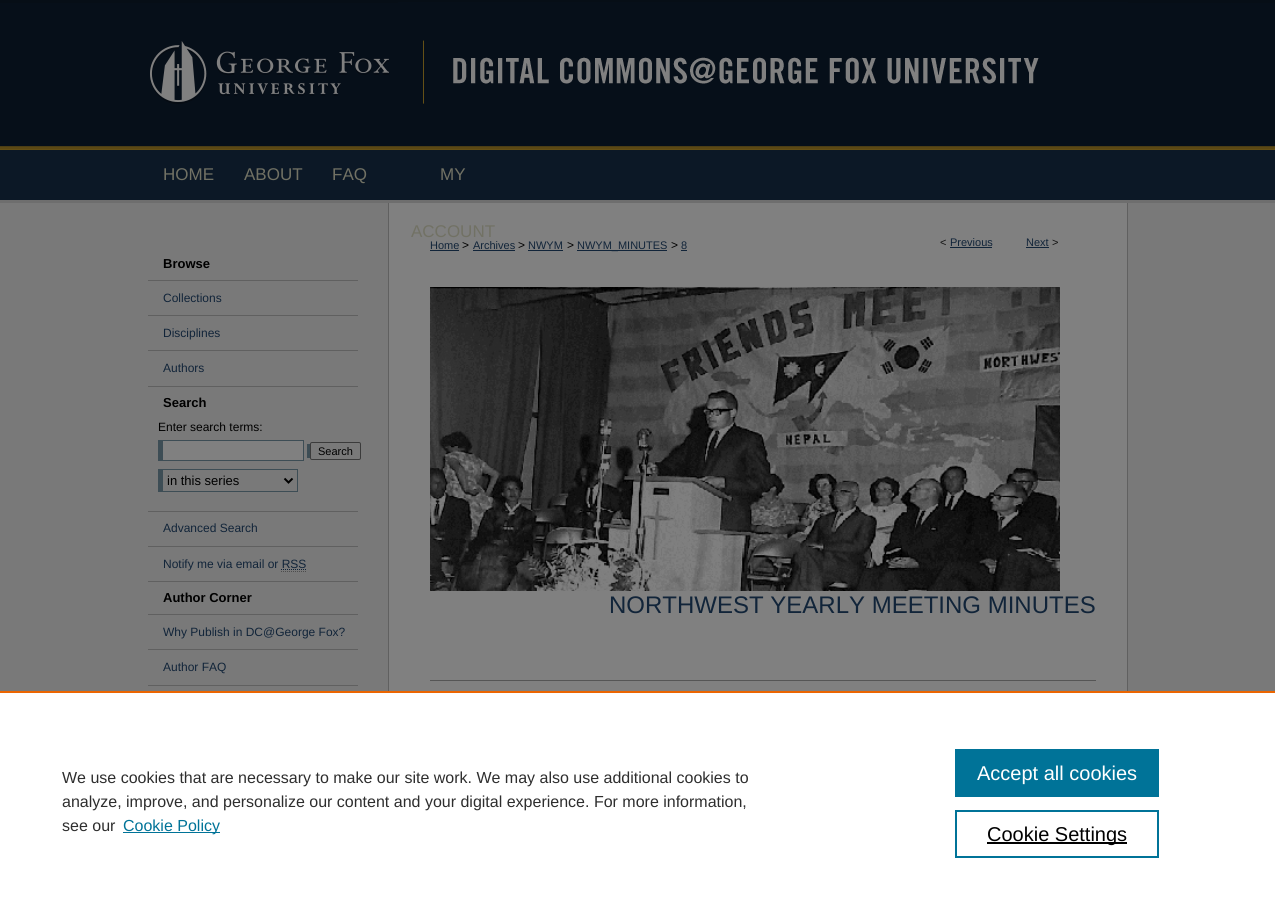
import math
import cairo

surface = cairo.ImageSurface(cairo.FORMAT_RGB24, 1275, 911)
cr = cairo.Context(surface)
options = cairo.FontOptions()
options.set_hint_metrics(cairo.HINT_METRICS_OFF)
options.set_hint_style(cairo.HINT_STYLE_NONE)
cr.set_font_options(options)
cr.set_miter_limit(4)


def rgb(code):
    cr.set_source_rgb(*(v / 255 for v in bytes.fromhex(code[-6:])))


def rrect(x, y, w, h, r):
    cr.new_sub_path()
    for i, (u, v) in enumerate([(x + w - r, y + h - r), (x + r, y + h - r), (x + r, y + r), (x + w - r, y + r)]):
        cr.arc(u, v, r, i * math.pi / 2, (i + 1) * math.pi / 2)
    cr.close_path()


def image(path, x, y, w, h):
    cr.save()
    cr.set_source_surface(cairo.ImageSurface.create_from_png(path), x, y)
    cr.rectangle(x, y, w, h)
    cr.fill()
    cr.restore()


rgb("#797979")
cr.paint()
image("img/1.png", 0, 0, 1275, 203)
image("img/2.png", 148, 0, 250, 104)
image("img/3.png", 398, 0, 730, 104)
image("img/4.png", 148, 146, 980, 57)
image("img/5.png", 148, 203, 980, 488)
for x, y, w, h, color in [
    (148, 386, 210, 1, "#606060"),
    (148, 280, 210, 1, "#606060"),
    (148, 315, 210, 1, "#606060"),
    (148, 350, 210, 1, "#606060"),
    (158, 440, 146, 21, "#3d4d55"),
    (307, 444, 3, 14, "#3d4d55"),
    (163, 441, 140, 19, "#808080"),
]:
    rgb(color)
    cr.rectangle(x, y, w, h)
    cr.fill()
rrect(310.5, 442.5, 50, 17, 1.5)
rgb("#3b3b3b")
cr.set_line_width(1)
cr.stroke()
for x, y, w, h, color in [
    (158, 469, 140, 1, "#3d4d55"),
    (297, 469, 1, 23, "#3d4d55"),
    (158, 491, 140, 1, "#3d4d55"),
    (158, 469, 5, 23, "#3d4d55"),
]:
    rgb(color)
    cr.rectangle(x, y, w, h)
    cr.fill()
cr.new_path()
cr.move_to(284.5, 478.5)
cr.line_to(288.5, 482.5)
cr.line_to(292.5, 478.5)
rgb("#000000")
cr.set_line_width(2)
cr.stroke()
for x, y, w, h, color in [
    (148, 511, 210, 1, "#606060"),
    (148, 546, 210, 1, "#606060"),
    (148, 581, 210, 1, "#606060"),
]:
    rgb(color)
    cr.rectangle(x, y, w, h)
    cr.fill()
cr.new_path()
cr.move_to(281, 569.5)
cr.line_to(306, 569.5)
rgb("#112439")
cr.set_line_width(1)
cr.set_dash([1, 1])
cr.stroke()
cr.new_path()
cr.move_to(281, 571.5)
cr.line_to(306, 571.5)
rgb("#4d4d4d")
cr.stroke()
for x, y, w, h, color in [
    (148, 685, 210, 1, "#606060"),
    (148, 614, 210, 1, "#606060"),
    (148, 649, 210, 1, "#606060"),
    (430, 250, 29, 1, "#112439"),
    (473, 250, 42, 1, "#112439"),
    (528, 250, 35, 1, "#112439"),
    (577, 250, 90, 1, "#112439"),
    (681, 250, 6, 1, "#112439"),
    (950, 247, 42, 1, "#112439"),
    (1026, 247, 23, 1, "#112439"),
]:
    rgb(color)
    cr.rectangle(x, y, w, h)
    cr.fill()
image("img/6.png", 430, 287, 630, 304)
for x, y, w, h, color in [
    (430, 680, 666, 1, "#555555"),
    (0, 693, 1275, 218, "#ffffff"),
    (0, 691, 1275, 2, "#eb6500"),
    (123, 832, 97, 1, "#007398"),
    (955, 749, 204, 48, "#007398"),
]:
    rgb(color)
    cr.rectangle(x, y, w, h)
    cr.fill()
cr.rectangle(956, 811, 202, 46)
cr.set_line_width(2)
cr.set_dash([])
cr.stroke()
rgb("#000000")
cr.rectangle(987, 842, 140, 2)
cr.fill()
cr.select_font_face("Liberation Sans")
cr.set_font_size(17)
rgb("#717164")
for x, y, s in [
    (163, 180, "HOME"),
    (244, 180, "ABOUT"),
    (332, 180, "FAQ"),
    (440, 180, "MY"),
    (411, 237, "ACCOUNT"),
]:
    cr.move_to(x, y)
    cr.show_text(s)
cr.select_font_face("Liberation Sans", cairo.FONT_SLANT_NORMAL, cairo.FONT_WEIGHT_BOLD)
cr.set_font_size(13)
rgb("#000000")
cr.move_to(163, 268)
cr.show_text("Browse")
cr.select_font_face("Liberation Sans")
cr.set_font_size(12)
rgb("#112439")
for x, y, s in [
    (163, 302, "Collections"),
    (163, 337, "Disciplines"),
    (163, 372, "Authors"),
]:
    cr.move_to(x, y)
    cr.show_text(s)
cr.select_font_face("Liberation Sans", cairo.FONT_SLANT_NORMAL, cairo.FONT_WEIGHT_BOLD)
cr.set_font_size(13)
rgb("#000000")
cr.move_to(163, 407)
cr.show_text("Search")
cr.select_font_face("Liberation Sans")
cr.set_font_size(12)
cr.move_to(158, 431)
cr.show_text("Enter search terms:")
cr.set_font_size(11)
cr.move_to(318, 455)
cr.show_text("Search")
cr.set_font_size(13)
cr.move_to(167, 485)
cr.show_text("in this series")
cr.set_font_size(12)
rgb("#112439")
cr.move_to(163, 532)
cr.show_text("Advanced Search")
cr.move_to(163, 568)
cr.show_text("Notify me via email or RSS")
cr.select_font_face("Liberation Sans", cairo.FONT_SLANT_NORMAL, cairo.FONT_WEIGHT_BOLD)
cr.set_font_size(13)
rgb("#000000")
cr.move_to(163, 602)
cr.show_text("Author Corner")
cr.select_font_face("Liberation Sans")
cr.set_font_size(12)
rgb("#112439")
cr.move_to(163, 636)
cr.show_text("Why Publish in DC@George Fox?")
cr.move_to(163, 671)
cr.show_text("Author FAQ")
cr.set_font_size(11)
cr.move_to(430, 249)
cr.show_text("Home")
cr.set_font_size(12)
rgb("#000000")
cr.move_to(462, 249)
cr.show_text(">")
cr.set_font_size(11)
rgb("#112439")
cr.move_to(473, 249)
cr.show_text("Archives")
cr.set_font_size(12)
rgb("#000000")
cr.move_to(518, 249)
cr.show_text(">")
cr.set_font_size(11)
rgb("#112439")
cr.move_to(528, 249)
cr.show_text("NWYM")
cr.set_font_size(12)
rgb("#000000")
cr.move_to(567, 249)
cr.show_text(">")
cr.set_font_size(11)
rgb("#112439")
cr.move_to(577, 249)
cr.show_text("NWYM_MINUTES")
cr.set_font_size(12)
rgb("#000000")
cr.move_to(671, 249)
cr.show_text(">")
cr.set_font_size(11)
rgb("#112439")
cr.move_to(681, 249)
cr.show_text("8")
rgb("#111111")
cr.move_to(940, 246)
cr.show_text("<")
rgb("#112439")
cr.move_to(950, 246)
cr.show_text("Previous")
cr.move_to(1026, 246)
cr.show_text("Next")
rgb("#111111")
cr.move_to(1052, 246)
cr.show_text(">")
cr.set_font_size(24)
rgb("#112439")
cr.move_to(609, 613)
cr.show_text("NORTHWEST YEARLY MEETING MINUTES")
cr.set_font_size(16)
rgb("#2e2e2e")
for x, y, s in [
    (62, 783, "We use cookies that are necessary to make our site work. We may also use additional cookies to"),
    (62, 807, "analyze, improve, and personalize our content and your digital experience. For more information,"),
    (62, 831, "see our"),
]:
    cr.move_to(x, y)
    cr.show_text(s)
rgb("#007398")
cr.move_to(123, 831)
cr.show_text("Cookie Policy")
cr.set_font_size(20)
rgb("#ffffff")
cr.move_to(977, 780)
cr.show_text("Accept all cookies")
rgb("#000000")
cr.move_to(987, 841)
cr.show_text("Cookie Settings")
surface.write_to_png("page.png")
